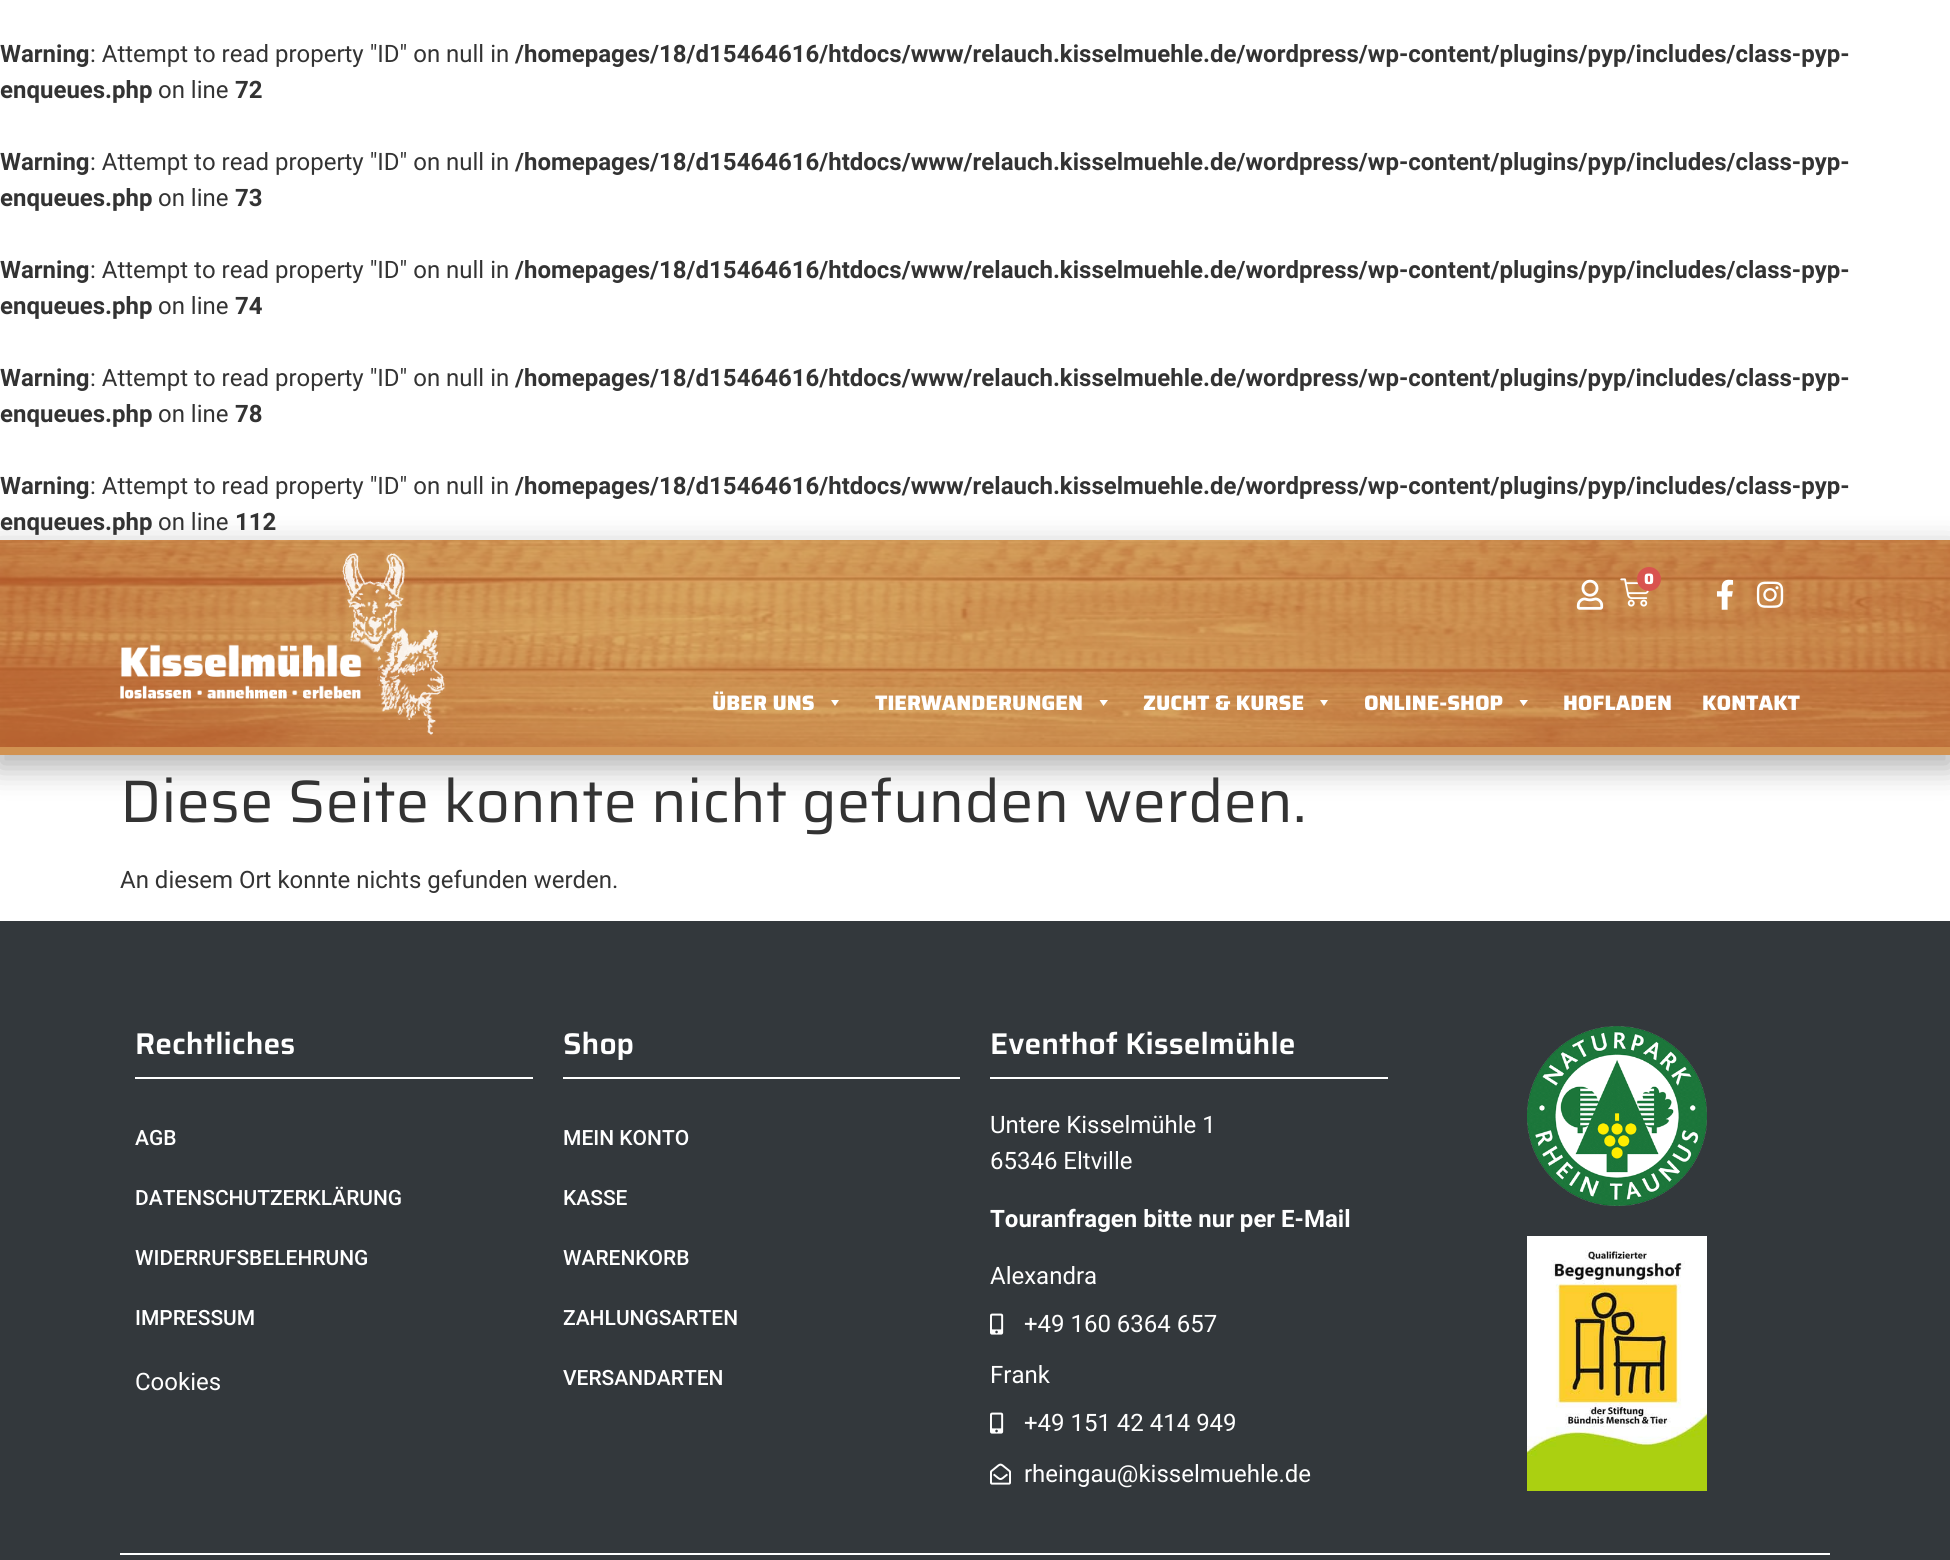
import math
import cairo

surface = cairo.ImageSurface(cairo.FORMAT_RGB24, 1950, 1560)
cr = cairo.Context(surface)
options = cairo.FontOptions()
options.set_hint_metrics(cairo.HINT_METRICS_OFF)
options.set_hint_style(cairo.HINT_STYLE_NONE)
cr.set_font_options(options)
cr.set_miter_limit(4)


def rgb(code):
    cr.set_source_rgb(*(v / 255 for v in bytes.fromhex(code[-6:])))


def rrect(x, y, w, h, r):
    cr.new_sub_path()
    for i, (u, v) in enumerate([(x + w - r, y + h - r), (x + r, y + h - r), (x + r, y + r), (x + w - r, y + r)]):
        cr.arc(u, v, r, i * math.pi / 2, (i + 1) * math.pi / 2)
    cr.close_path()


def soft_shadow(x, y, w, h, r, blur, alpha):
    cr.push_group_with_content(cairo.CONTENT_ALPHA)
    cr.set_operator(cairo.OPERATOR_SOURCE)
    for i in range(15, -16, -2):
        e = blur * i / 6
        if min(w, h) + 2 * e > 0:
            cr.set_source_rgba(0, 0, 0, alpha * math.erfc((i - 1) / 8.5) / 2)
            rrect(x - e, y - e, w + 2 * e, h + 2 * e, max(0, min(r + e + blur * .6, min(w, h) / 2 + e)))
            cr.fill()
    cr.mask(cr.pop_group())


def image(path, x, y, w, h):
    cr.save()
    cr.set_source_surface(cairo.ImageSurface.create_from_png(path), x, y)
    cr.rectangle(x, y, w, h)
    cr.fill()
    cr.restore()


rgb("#ffffff")
cr.paint()
rgb("#000000")
soft_shadow(-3, 548, 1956, 220, 0, 15, 0.3)
image("img/1.png", 0, 540, 1950, 207)
rgb("#d19251")
cr.rectangle(0, 747, 1950, 8)
cr.fill()
image("img/2.png", 120, 552, 326, 184)
image("img/3.png", 1576, 579, 28, 31)
image("img/4.png", 1620, 578, 29, 29)
rgb("#d9534f")
cr.arc(1649, 579, 12, 0, 2 * math.pi)
cr.fill()
image("img/5.png", 1716, 579, 18, 31)
image("img/6.png", 1756, 581, 28, 27)
rgb("#ffffff")
cr.new_path()
cr.move_to(839, 700)
cr.line_to(835, 706)
cr.line_to(831, 700)
cr.close_path()
cr.fill()
cr.new_path()
cr.move_to(1108, 700)
cr.line_to(1103.5, 706)
cr.line_to(1099.5, 700)
cr.close_path()
cr.fill()
cr.new_path()
cr.move_to(1328, 700)
cr.line_to(1324, 706)
cr.line_to(1320, 700)
cr.close_path()
cr.fill()
cr.new_path()
cr.move_to(1528, 700)
cr.line_to(1523.5, 706)
cr.line_to(1519.5, 700)
cr.close_path()
cr.fill()
for x, y, w, h, color in [
    (0, 921, 1950, 639, "#33383c"),
    (135, 1077, 398, 2, "#ffffff"),
    (563, 1077, 397, 2, "#ffffff"),
    (990, 1077, 398, 2, "#ffffff"),
]:
    rgb(color)
    cr.rectangle(x, y, w, h)
    cr.fill()
image("img/7.png", 990, 1313, 14, 22)
image("img/7.png", 990, 1412, 14, 22)
image("img/8.png", 990, 1463, 21, 22)
image("img/9.png", 1527, 1026, 180, 180)
image("img/10.png", 1527, 1236, 180, 255)
cr.rectangle(120, 1553, 1710, 2)
cr.fill()
cr.select_font_face("Roboto", cairo.FONT_SLANT_NORMAL, cairo.FONT_WEIGHT_BOLD)
cr.set_font_size(24)
rgb("#333333")
cr.move_to(0, 62)
cr.show_text("Warning")
cr.select_font_face("Roboto")
cr.move_to(90, 62)
cr.show_text(": Attempt to read property \"ID\" on null in")
cr.select_font_face("Roboto", cairo.FONT_SLANT_NORMAL, cairo.FONT_WEIGHT_BOLD)
cr.move_to(515, 62)
cr.show_text("/homepages/18/d15464616/htdocs/www/relauch.kisselmuehle.de/wordpress/wp-content/plugins/pyp/includes/class-pyp-")
cr.move_to(0, 98)
cr.show_text("enqueues.php")
cr.select_font_face("Roboto")
cr.move_to(158, 98)
cr.show_text("on line")
cr.select_font_face("Roboto", cairo.FONT_SLANT_NORMAL, cairo.FONT_WEIGHT_BOLD)
cr.move_to(235, 98)
cr.show_text("72")
cr.move_to(0, 170)
cr.show_text("Warning")
cr.select_font_face("Roboto")
cr.move_to(90, 170)
cr.show_text(": Attempt to read property \"ID\" on null in")
cr.select_font_face("Roboto", cairo.FONT_SLANT_NORMAL, cairo.FONT_WEIGHT_BOLD)
cr.move_to(515, 170)
cr.show_text("/homepages/18/d15464616/htdocs/www/relauch.kisselmuehle.de/wordpress/wp-content/plugins/pyp/includes/class-pyp-")
cr.move_to(0, 206)
cr.show_text("enqueues.php")
cr.select_font_face("Roboto")
cr.move_to(158, 206)
cr.show_text("on line")
cr.select_font_face("Roboto", cairo.FONT_SLANT_NORMAL, cairo.FONT_WEIGHT_BOLD)
cr.move_to(235, 206)
cr.show_text("73")
cr.move_to(0, 278)
cr.show_text("Warning")
cr.select_font_face("Roboto")
cr.move_to(90, 278)
cr.show_text(": Attempt to read property \"ID\" on null in")
cr.select_font_face("Roboto", cairo.FONT_SLANT_NORMAL, cairo.FONT_WEIGHT_BOLD)
cr.move_to(515, 278)
cr.show_text("/homepages/18/d15464616/htdocs/www/relauch.kisselmuehle.de/wordpress/wp-content/plugins/pyp/includes/class-pyp-")
cr.move_to(0, 314)
cr.show_text("enqueues.php")
cr.select_font_face("Roboto")
cr.move_to(158, 314)
cr.show_text("on line")
cr.select_font_face("Roboto", cairo.FONT_SLANT_NORMAL, cairo.FONT_WEIGHT_BOLD)
cr.move_to(235, 314)
cr.show_text("74")
cr.move_to(0, 386)
cr.show_text("Warning")
cr.select_font_face("Roboto")
cr.move_to(90, 386)
cr.show_text(": Attempt to read property \"ID\" on null in")
cr.select_font_face("Roboto", cairo.FONT_SLANT_NORMAL, cairo.FONT_WEIGHT_BOLD)
cr.move_to(515, 386)
cr.show_text("/homepages/18/d15464616/htdocs/www/relauch.kisselmuehle.de/wordpress/wp-content/plugins/pyp/includes/class-pyp-")
cr.move_to(0, 422)
cr.show_text("enqueues.php")
cr.select_font_face("Roboto")
cr.move_to(158, 422)
cr.show_text("on line")
cr.select_font_face("Roboto", cairo.FONT_SLANT_NORMAL, cairo.FONT_WEIGHT_BOLD)
cr.move_to(235, 422)
cr.show_text("78")
cr.move_to(0, 494)
cr.show_text("Warning")
cr.select_font_face("Roboto")
cr.move_to(90, 494)
cr.show_text(": Attempt to read property \"ID\" on null in")
cr.select_font_face("Roboto", cairo.FONT_SLANT_NORMAL, cairo.FONT_WEIGHT_BOLD)
cr.move_to(515, 494)
cr.show_text("/homepages/18/d15464616/htdocs/www/relauch.kisselmuehle.de/wordpress/wp-content/plugins/pyp/includes/class-pyp-")
cr.move_to(0, 530)
cr.show_text("enqueues.php")
cr.select_font_face("Roboto")
cr.move_to(158, 530)
cr.show_text("on line")
cr.select_font_face("Roboto", cairo.FONT_SLANT_NORMAL, cairo.FONT_WEIGHT_BOLD)
cr.move_to(235, 530)
cr.show_text("112")
cr.select_font_face("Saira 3 Thin")
cr.set_font_size(15)
rgb("#ffffff")
cr.move_to(1644, 584)
cr.show_text("0")
cr.set_font_size(21)
for x, y, s in [
    (712, 710, "ÜBER UNS"),
    (875, 710, "TIERWANDERUNGEN"),
    (1143, 710, "ZUCHT & KURSE"),
    (1364, 710, "ONLINE-SHOP"),
    (1563, 710, "HOFLADEN"),
    (1702, 710, "KONTAKT"),
]:
    cr.move_to(x, y)
    cr.show_text(s)
cr.select_font_face("Saira Thin")
cr.set_font_size(60)
rgb("#333333")
cr.move_to(120, 822)
cr.show_text("Diese Seite konnte nicht gefunden werden.")
cr.select_font_face("Roboto")
cr.set_font_size(24)
cr.move_to(120, 888)
cr.show_text("An diesem Ort konnte nichts gefunden werden.")
cr.select_font_face("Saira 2 Thin")
cr.set_font_size(30)
rgb("#ffffff")
cr.move_to(135, 1054)
cr.show_text("Rechtliches")
cr.select_font_face("Roboto Medium")
cr.set_font_size(21)
for x, y, s in [
    (135, 1145, "AGB"),
    (135, 1205, "DATENSCHUTZERKLÄRUNG"),
    (135, 1265, "WIDERRUFSBELEHRUNG"),
    (135, 1325, "IMPRESSUM"),
]:
    cr.move_to(x, y)
    cr.show_text(s)
cr.select_font_face("Roboto")
cr.set_font_size(24)
cr.move_to(135, 1390)
cr.show_text("Cookies")
cr.select_font_face("Saira 2 Thin")
cr.set_font_size(30)
cr.move_to(563, 1054)
cr.show_text("Shop")
cr.select_font_face("Roboto Medium")
cr.set_font_size(21)
for x, y, s in [
    (563, 1145, "MEIN KONTO"),
    (563, 1205, "KASSE"),
    (563, 1265, "WARENKORB"),
    (563, 1325, "ZAHLUNGSARTEN"),
    (563, 1385, "VERSANDARTEN"),
]:
    cr.move_to(x, y)
    cr.show_text(s)
cr.select_font_face("Saira 2 Thin")
cr.set_font_size(30)
cr.move_to(990, 1054)
cr.show_text("Eventhof Kisselmühle")
cr.select_font_face("Roboto")
cr.set_font_size(24)
cr.move_to(990, 1133)
cr.show_text("Untere Kisselmühle 1")
cr.move_to(990, 1169)
cr.show_text("65346 Eltville")
cr.select_font_face("Roboto", cairo.FONT_SLANT_NORMAL, cairo.FONT_WEIGHT_BOLD)
cr.move_to(990, 1227)
cr.show_text("Touranfragen bitte nur per E-Mail")
cr.select_font_face("Roboto")
for x, y, s in [
    (990, 1284, "Alexandra"),
    (1024, 1332, "+49 160 6364 657"),
    (990, 1383, "Frank"),
    (1024, 1431, "+49 151 42 414 949"),
    (1024, 1482, "rheingau@kisselmuehle.de"),
]:
    cr.move_to(x, y)
    cr.show_text(s)
surface.write_to_png("page.png")
